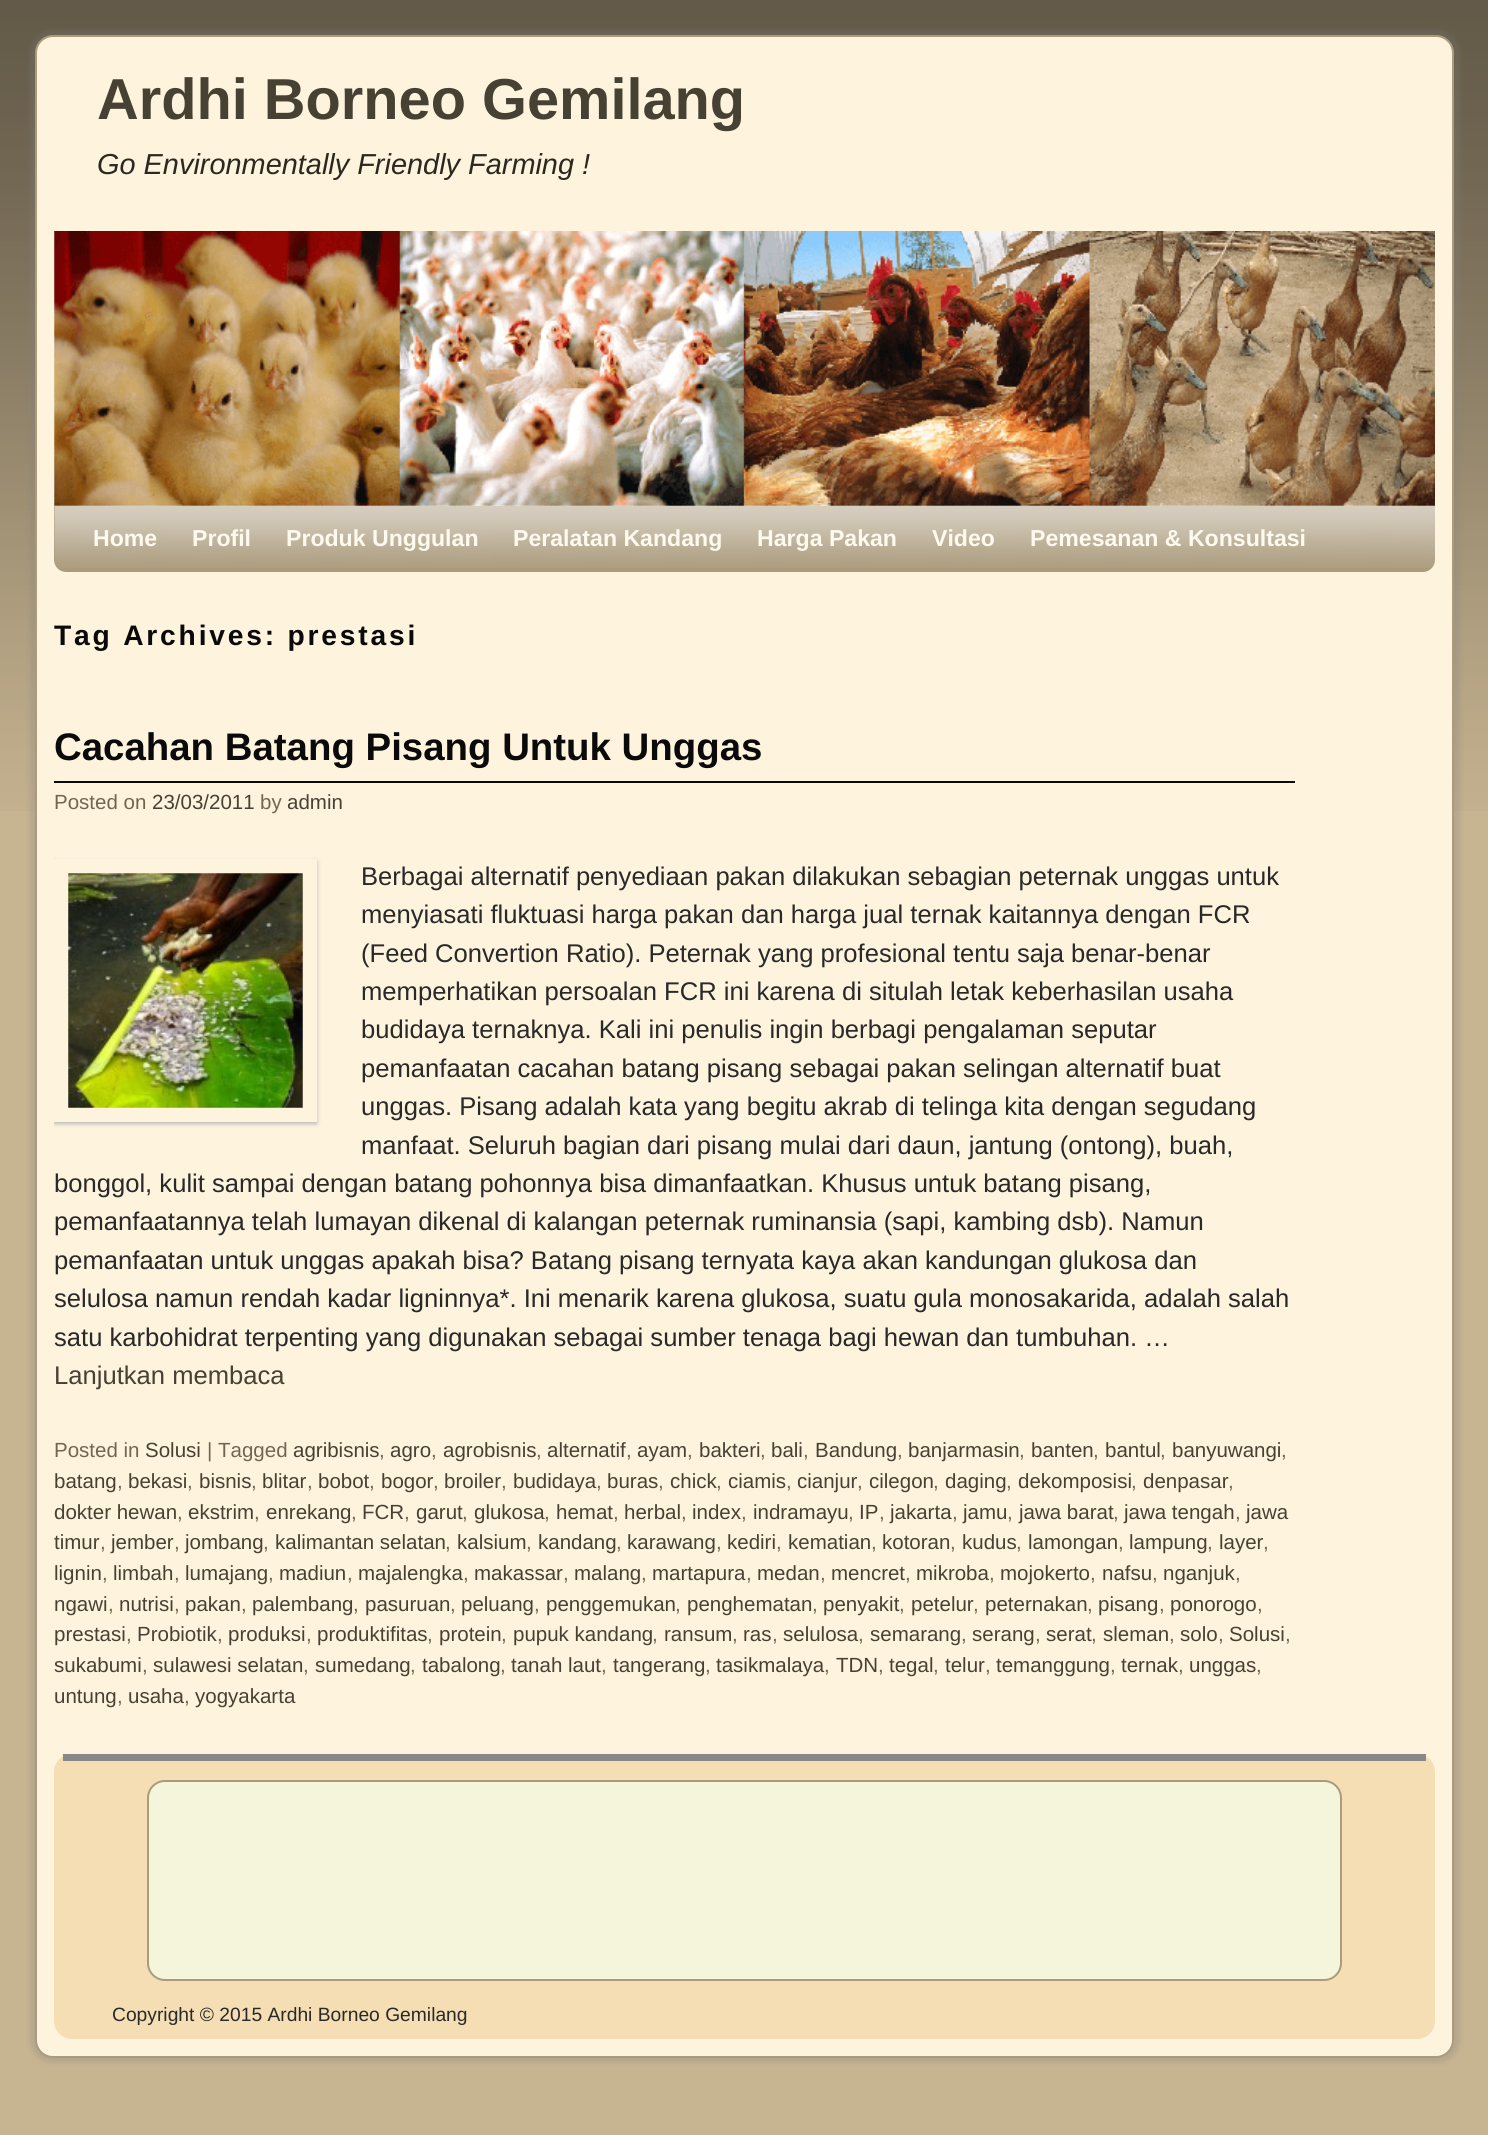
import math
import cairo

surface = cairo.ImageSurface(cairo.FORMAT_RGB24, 1488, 2135)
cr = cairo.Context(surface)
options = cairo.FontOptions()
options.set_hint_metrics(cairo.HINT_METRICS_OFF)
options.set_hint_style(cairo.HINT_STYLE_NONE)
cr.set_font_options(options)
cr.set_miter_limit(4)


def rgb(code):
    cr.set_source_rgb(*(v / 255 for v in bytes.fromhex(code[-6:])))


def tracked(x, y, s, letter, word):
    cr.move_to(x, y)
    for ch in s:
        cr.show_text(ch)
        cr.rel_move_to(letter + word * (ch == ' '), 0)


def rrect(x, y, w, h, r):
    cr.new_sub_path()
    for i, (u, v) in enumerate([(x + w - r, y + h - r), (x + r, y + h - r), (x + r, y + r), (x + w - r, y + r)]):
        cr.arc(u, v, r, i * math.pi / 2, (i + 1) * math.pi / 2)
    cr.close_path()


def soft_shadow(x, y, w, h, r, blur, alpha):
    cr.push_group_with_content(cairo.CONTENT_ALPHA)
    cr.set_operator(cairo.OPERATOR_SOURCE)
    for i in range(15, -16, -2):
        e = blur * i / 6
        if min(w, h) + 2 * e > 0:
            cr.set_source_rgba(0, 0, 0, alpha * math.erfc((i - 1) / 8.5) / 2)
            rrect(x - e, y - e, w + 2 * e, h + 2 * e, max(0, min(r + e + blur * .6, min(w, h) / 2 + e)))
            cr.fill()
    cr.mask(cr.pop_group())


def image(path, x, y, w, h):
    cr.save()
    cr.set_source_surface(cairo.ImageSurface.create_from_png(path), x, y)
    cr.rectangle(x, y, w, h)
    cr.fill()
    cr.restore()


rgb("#c7b491")
cr.paint()
image("img/1.png", 0, 0, 1488, 811)
rgb("#7f7f7f")
soft_shadow(30, 30, 1430, 2033, 23, 2.5, 0.25)
rgb("#fef3dd")
rrect(36, 36, 1417, 2021, 17)
cr.fill_preserve()
rgb("#ab9b7d")
cr.stroke()
image("img/2.png", 54, 231, 1381, 275)
cr.new_path()
cr.move_to(54, 506)
cr.line_to(1435, 506)
cr.line_to(1435, 560)
cr.curve_to(1435, 566.5, 1429.5, 572, 1423, 572)
cr.line_to(66, 572)
cr.curve_to(59.5, 572, 54, 566.5, 54, 560)
cr.close_path()
cr.fill()
image("img/3.png", 54, 506, 1381, 62)
rgb("#0a0a0a")
cr.rectangle(54, 781, 1241, 2)
cr.fill()
cr.save()
cr.rectangle(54, 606, 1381, 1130)
cr.clip()
cr.set_fill_rule(cairo.FILL_RULE_EVEN_ODD)
cr.new_path()
cr.move_to(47, 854)
cr.line_to(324, 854)
cr.line_to(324, 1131)
cr.line_to(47, 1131)
cr.close_path()
cr.move_to(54, 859)
cr.line_to(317, 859)
cr.line_to(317, 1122)
cr.line_to(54, 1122)
cr.close_path()
cr.clip()
rgb("#bbbbbb")
soft_shadow(54, 861, 263, 263, 0, 2, 1)
cr.restore()
image("img/4.png", 68, 873, 235, 235)
rgb("#f5deb3")
rrect(54, 1754, 1381, 285, 18)
cr.fill()
rgb("#888888")
cr.rectangle(63, 1754, 1363, 7)
cr.fill()
rgb("#f5f5dc")
rrect(148, 1781, 1193, 199, 17)
cr.fill_preserve()
rgb("#ab9b7d")
cr.stroke()
cr.select_font_face("Liberation Sans", cairo.FONT_SLANT_NORMAL, cairo.FONT_WEIGHT_BOLD)
cr.set_font_size(57.75)
rgb("#474134")
cr.move_to(97, 119)
cr.show_text("Ardhi Borneo Gemilang")
cr.select_font_face("Liberation Sans", cairo.FONT_SLANT_ITALIC)
cr.set_font_size(28.9)
rgb("#2b2820")
cr.move_to(97, 174)
cr.show_text("Go Environmentally Friendly Farming !")
cr.select_font_face("Liberation Sans", cairo.FONT_SLANT_NORMAL, cairo.FONT_WEIGHT_BOLD)
cr.set_font_size(23.1)
rgb("#fffaef")
for x, y, s in [
    (93, 546, "Home"),
    (192, 546, "Profil"),
    (286, 546, "Produk Unggulan"),
    (513, 546, "Peralatan Kandang"),
    (757, 546, "Harga Pakan"),
    (932, 546, "Video"),
    (1030, 546, "Pemesanan & Konsultasi"),
]:
    cr.move_to(x, y)
    cr.show_text(s)
cr.set_font_size(28.2)
rgb("#0a0a0a")
tracked(54, 645, "Tag Archives: prestasi", 2.8, 0)
cr.set_font_size(38.4)
cr.move_to(54, 760)
cr.show_text("Cacahan Batang Pisang Untuk Unggas")
cr.select_font_face("Liberation Sans")
cr.set_font_size(20.5)
rgb("#706752")
cr.move_to(54, 809)
cr.show_text("Posted on")
rgb("#474134")
cr.move_to(152, 809)
cr.show_text("23/03/2011")
rgb("#706752")
cr.move_to(260, 809)
cr.show_text("by")
rgb("#474134")
cr.move_to(287, 809)
cr.show_text("admin")
cr.set_font_size(25.6)
rgb("#292929")
for x, y, s in [
    (361, 885, "Berbagai alternatif penyediaan pakan dilakukan sebagian peternak unggas untuk"),
    (361, 923, "menyiasati fluktuasi harga pakan dan harga jual ternak kaitannya dengan FCR"),
    (361, 962, "(Feed Convertion Ratio). Peternak yang profesional tentu saja benar-benar"),
    (361, 1000, "memperhatikan persoalan FCR ini karena di situlah letak keberhasilan usaha"),
    (361, 1038, "budidaya ternaknya. Kali ini penulis ingin berbagi pengalaman seputar"),
    (361, 1077, "pemanfaatan cacahan batang pisang sebagai pakan selingan alternatif buat"),
    (361, 1115, "unggas. Pisang adalah kata yang begitu akrab di telinga kita dengan segudang"),
    (361, 1154, "manfaat. Seluruh bagian dari pisang mulai dari daun, jantung (ontong), buah,"),
    (54, 1192, "bonggol, kulit sampai dengan batang pohonnya bisa dimanfaatkan. Khusus untuk batang pisang,"),
    (54, 1230, "pemanfaatannya telah lumayan dikenal di kalangan peternak ruminansia (sapi, kambing dsb). Namun"),
    (54, 1269, "pemanfaatan untuk unggas apakah bisa? Batang pisang ternyata kaya akan kandungan glukosa dan"),
    (54, 1307, "selulosa namun rendah kadar ligninnya*. Ini menarik karena glukosa, suatu gula monosakarida, adalah salah"),
    (54, 1346, "satu karbohidrat terpenting yang digunakan sebagai sumber tenaga bagi hewan dan tumbuhan. …"),
]:
    cr.move_to(x, y)
    cr.show_text(s)
rgb("#474134")
cr.move_to(54, 1384)
cr.show_text("Lanjutkan membaca")
cr.set_font_size(20.5)
rgb("#706752")
cr.move_to(54, 1457)
cr.show_text("Posted in")
rgb("#474134")
cr.move_to(145, 1457)
cr.show_text("Solusi")
rgb("#706752")
cr.move_to(207, 1457)
cr.show_text("| Tagged")
rgb("#474134")
cr.move_to(293, 1457)
cr.show_text("agribisnis")
rgb("#706752")
cr.move_to(379, 1457)
cr.show_text(",")
rgb("#474134")
cr.move_to(390, 1457)
cr.show_text("agro")
rgb("#706752")
cr.move_to(431, 1457)
cr.show_text(",")
rgb("#474134")
cr.move_to(443, 1457)
cr.show_text("agrobisnis")
rgb("#706752")
cr.move_to(536, 1457)
cr.show_text(",")
rgb("#474134")
cr.move_to(547, 1457)
cr.show_text("alternatif")
rgb("#706752")
cr.move_to(626, 1457)
cr.show_text(",")
rgb("#474134")
cr.move_to(637, 1457)
cr.show_text("ayam")
rgb("#706752")
cr.move_to(687, 1457)
cr.show_text(",")
rgb("#474134")
cr.move_to(699, 1457)
cr.show_text("bakteri")
rgb("#706752")
cr.move_to(760, 1457)
cr.show_text(",")
rgb("#474134")
cr.move_to(771, 1457)
cr.show_text("bali")
rgb("#706752")
cr.move_to(803, 1457)
cr.show_text(",")
rgb("#474134")
cr.move_to(815, 1457)
cr.show_text("Bandung")
rgb("#706752")
cr.move_to(897, 1457)
cr.show_text(",")
rgb("#474134")
cr.move_to(908, 1457)
cr.show_text("banjarmasin")
rgb("#706752")
cr.move_to(1019, 1457)
cr.show_text(",")
rgb("#474134")
cr.move_to(1031, 1457)
cr.show_text("banten")
rgb("#706752")
cr.move_to(1093, 1457)
cr.show_text(",")
rgb("#474134")
cr.move_to(1105, 1457)
cr.show_text("bantul")
rgb("#706752")
cr.move_to(1160, 1457)
cr.show_text(",")
rgb("#474134")
cr.move_to(1172, 1457)
cr.show_text("banyuwangi")
rgb("#706752")
cr.move_to(1281, 1457)
cr.show_text(",")
rgb("#474134")
cr.move_to(54, 1488)
cr.show_text("batang")
rgb("#706752")
cr.move_to(117, 1488)
cr.show_text(",")
rgb("#474134")
cr.move_to(128, 1488)
cr.show_text("bekasi")
rgb("#706752")
cr.move_to(187, 1488)
cr.show_text(",")
rgb("#474134")
cr.move_to(199, 1488)
cr.show_text("bisnis")
rgb("#706752")
cr.move_to(251, 1488)
cr.show_text(",")
rgb("#474134")
cr.move_to(262, 1488)
cr.show_text("blitar")
rgb("#706752")
cr.move_to(307, 1488)
cr.show_text(",")
rgb("#474134")
cr.move_to(318, 1488)
cr.show_text("bobot")
rgb("#706752")
cr.move_to(369, 1488)
cr.show_text(",")
rgb("#474134")
cr.move_to(381, 1488)
cr.show_text("bogor")
rgb("#706752")
cr.move_to(433, 1488)
cr.show_text(",")
rgb("#474134")
cr.move_to(444, 1488)
cr.show_text("broiler")
rgb("#706752")
cr.move_to(501, 1488)
cr.show_text(",")
rgb("#474134")
cr.move_to(513, 1488)
cr.show_text("budidaya")
rgb("#706752")
cr.move_to(596, 1488)
cr.show_text(",")
rgb("#474134")
cr.move_to(607, 1488)
cr.show_text("buras")
rgb("#706752")
cr.move_to(658, 1488)
cr.show_text(",")
rgb("#474134")
cr.move_to(670, 1488)
cr.show_text("chick")
rgb("#706752")
cr.move_to(716, 1488)
cr.show_text(",")
rgb("#474134")
cr.move_to(728, 1488)
cr.show_text("ciamis")
rgb("#706752")
cr.move_to(786, 1488)
cr.show_text(",")
rgb("#474134")
cr.move_to(797, 1488)
cr.show_text("cianjur")
rgb("#706752")
cr.move_to(857, 1488)
cr.show_text(",")
rgb("#474134")
cr.move_to(869, 1488)
cr.show_text("cilegon")
rgb("#706752")
cr.move_to(933, 1488)
cr.show_text(",")
rgb("#474134")
cr.move_to(945, 1488)
cr.show_text("daging")
rgb("#706752")
cr.move_to(1006, 1488)
cr.show_text(",")
rgb("#474134")
cr.move_to(1018, 1488)
cr.show_text("dekomposisi")
rgb("#706752")
cr.move_to(1131, 1488)
cr.show_text(",")
rgb("#474134")
cr.move_to(1143, 1488)
cr.show_text("denpasar")
rgb("#706752")
cr.move_to(1228, 1488)
cr.show_text(",")
rgb("#474134")
cr.move_to(54, 1519)
cr.show_text("dokter hewan")
rgb("#706752")
cr.move_to(177, 1519)
cr.show_text(",")
rgb("#474134")
cr.move_to(188, 1519)
cr.show_text("ekstrim")
rgb("#706752")
cr.move_to(254, 1519)
cr.show_text(",")
rgb("#474134")
cr.move_to(266, 1519)
cr.show_text("enrekang")
rgb("#706752")
cr.move_to(351, 1519)
cr.show_text(",")
rgb("#474134")
cr.move_to(362, 1519)
cr.show_text("FCR")
rgb("#706752")
cr.move_to(404, 1519)
cr.show_text(",")
rgb("#474134")
cr.move_to(416, 1519)
cr.show_text("garut")
rgb("#706752")
cr.move_to(462, 1519)
cr.show_text(",")
rgb("#474134")
cr.move_to(474, 1519)
cr.show_text("glukosa")
rgb("#706752")
cr.move_to(544, 1519)
cr.show_text(",")
rgb("#474134")
cr.move_to(556, 1519)
cr.show_text("hemat")
rgb("#706752")
cr.move_to(613, 1519)
cr.show_text(",")
rgb("#474134")
cr.move_to(624, 1519)
cr.show_text("herbal")
rgb("#706752")
cr.move_to(681, 1519)
cr.show_text(",")
rgb("#474134")
cr.move_to(692, 1519)
cr.show_text("index")
rgb("#706752")
cr.move_to(741, 1519)
cr.show_text(",")
rgb("#474134")
cr.move_to(753, 1519)
cr.show_text("indramayu")
rgb("#706752")
cr.move_to(848, 1519)
cr.show_text(",")
rgb("#474134")
cr.move_to(859, 1519)
cr.show_text("IP")
rgb("#706752")
cr.move_to(879, 1519)
cr.show_text(",")
rgb("#474134")
cr.move_to(890, 1519)
cr.show_text("jakarta")
rgb("#706752")
cr.move_to(952, 1519)
cr.show_text(",")
rgb("#474134")
cr.move_to(963, 1519)
cr.show_text("jamu")
rgb("#706752")
cr.move_to(1007, 1519)
cr.show_text(",")
rgb("#474134")
cr.move_to(1019, 1519)
cr.show_text("jawa barat")
rgb("#706752")
cr.move_to(1113, 1519)
cr.show_text(",")
rgb("#474134")
cr.move_to(1124, 1519)
cr.show_text("jawa tengah")
rgb("#706752")
cr.move_to(1235, 1519)
cr.show_text(",")
rgb("#474134")
cr.move_to(1246, 1519)
cr.show_text("jawa")
cr.move_to(54, 1549)
cr.show_text("timur")
rgb("#706752")
cr.move_to(100, 1549)
cr.show_text(",")
rgb("#474134")
cr.move_to(111, 1549)
cr.show_text("jember")
rgb("#706752")
cr.move_to(174, 1549)
cr.show_text(",")
rgb("#474134")
cr.move_to(185, 1549)
cr.show_text("jombang")
rgb("#706752")
cr.move_to(263, 1549)
cr.show_text(",")
rgb("#474134")
cr.move_to(275, 1549)
cr.show_text("kalimantan selatan")
rgb("#706752")
cr.move_to(445, 1549)
cr.show_text(",")
rgb("#474134")
cr.move_to(457, 1549)
cr.show_text("kalsium")
rgb("#706752")
cr.move_to(526, 1549)
cr.show_text(",")
rgb("#474134")
cr.move_to(538, 1549)
cr.show_text("kandang")
rgb("#706752")
cr.move_to(616, 1549)
cr.show_text(",")
rgb("#474134")
cr.move_to(627, 1549)
cr.show_text("karawang")
rgb("#706752")
cr.move_to(716, 1549)
cr.show_text(",")
rgb("#474134")
cr.move_to(727, 1549)
cr.show_text("kediri")
rgb("#706752")
cr.move_to(776, 1549)
cr.show_text(",")
rgb("#474134")
cr.move_to(788, 1549)
cr.show_text("kematian")
rgb("#706752")
cr.move_to(871, 1549)
cr.show_text(",")
rgb("#474134")
cr.move_to(882, 1549)
cr.show_text("kotoran")
rgb("#706752")
cr.move_to(950, 1549)
cr.show_text(",")
rgb("#474134")
cr.move_to(962, 1549)
cr.show_text("kudus")
rgb("#706752")
cr.move_to(1016, 1549)
cr.show_text(",")
rgb("#474134")
cr.move_to(1028, 1549)
cr.show_text("lamongan")
rgb("#706752")
cr.move_to(1118, 1549)
cr.show_text(",")
rgb("#474134")
cr.move_to(1129, 1549)
cr.show_text("lampung")
rgb("#706752")
cr.move_to(1207, 1549)
cr.show_text(",")
rgb("#474134")
cr.move_to(1219, 1549)
cr.show_text("layer")
rgb("#706752")
cr.move_to(1263, 1549)
cr.show_text(",")
rgb("#474134")
cr.move_to(54, 1580)
cr.show_text("lignin")
rgb("#706752")
cr.move_to(102, 1580)
cr.show_text(",")
rgb("#474134")
cr.move_to(113, 1580)
cr.show_text("limbah")
rgb("#706752")
cr.move_to(174, 1580)
cr.show_text(",")
rgb("#474134")
cr.move_to(185, 1580)
cr.show_text("lumajang")
rgb("#706752")
cr.move_to(268, 1580)
cr.show_text(",")
rgb("#474134")
cr.move_to(279, 1580)
cr.show_text("madiun")
rgb("#706752")
cr.move_to(347, 1580)
cr.show_text(",")
rgb("#474134")
cr.move_to(358, 1580)
cr.show_text("majalengka")
rgb("#706752")
cr.move_to(463, 1580)
cr.show_text(",")
rgb("#474134")
cr.move_to(474, 1580)
cr.show_text("makassar")
rgb("#706752")
cr.move_to(563, 1580)
cr.show_text(",")
rgb("#474134")
cr.move_to(574, 1580)
cr.show_text("malang")
rgb("#706752")
cr.move_to(641, 1580)
cr.show_text(",")
rgb("#474134")
cr.move_to(652, 1580)
cr.show_text("martapura")
rgb("#706752")
cr.move_to(746, 1580)
cr.show_text(",")
rgb("#474134")
cr.move_to(757, 1580)
cr.show_text("medan")
rgb("#706752")
cr.move_to(820, 1580)
cr.show_text(",")
rgb("#474134")
cr.move_to(831, 1580)
cr.show_text("mencret")
rgb("#706752")
cr.move_to(905, 1580)
cr.show_text(",")
rgb("#474134")
cr.move_to(916, 1580)
cr.show_text("mikroba")
rgb("#706752")
cr.move_to(989, 1580)
cr.show_text(",")
rgb("#474134")
cr.move_to(1000, 1580)
cr.show_text("mojokerto")
rgb("#706752")
cr.move_to(1090, 1580)
cr.show_text(",")
rgb("#474134")
cr.move_to(1102, 1580)
cr.show_text("nafsu")
rgb("#706752")
cr.move_to(1152, 1580)
cr.show_text(",")
rgb("#474134")
cr.move_to(1163, 1580)
cr.show_text("nganjuk")
rgb("#706752")
cr.move_to(1235, 1580)
cr.show_text(",")
rgb("#474134")
cr.move_to(54, 1611)
cr.show_text("ngawi")
rgb("#706752")
cr.move_to(108, 1611)
cr.show_text(",")
rgb("#474134")
cr.move_to(119, 1611)
cr.show_text("nutrisi")
rgb("#706752")
cr.move_to(174, 1611)
cr.show_text(",")
rgb("#474134")
cr.move_to(185, 1611)
cr.show_text("pakan")
rgb("#706752")
cr.move_to(241, 1611)
cr.show_text(",")
rgb("#474134")
cr.move_to(252, 1611)
cr.show_text("palembang")
rgb("#706752")
cr.move_to(353, 1611)
cr.show_text(",")
rgb("#474134")
cr.move_to(365, 1611)
cr.show_text("pasuruan")
rgb("#706752")
cr.move_to(450, 1611)
cr.show_text(",")
rgb("#474134")
cr.move_to(461, 1611)
cr.show_text("peluang")
rgb("#706752")
cr.move_to(534, 1611)
cr.show_text(",")
rgb("#474134")
cr.move_to(546, 1611)
cr.show_text("penggemukan")
rgb("#706752")
cr.move_to(675, 1611)
cr.show_text(",")
rgb("#474134")
cr.move_to(687, 1611)
cr.show_text("penghematan")
rgb("#706752")
cr.move_to(812, 1611)
cr.show_text(",")
rgb("#474134")
cr.move_to(823, 1611)
cr.show_text("penyakit")
rgb("#706752")
cr.move_to(899, 1611)
cr.show_text(",")
rgb("#474134")
cr.move_to(911, 1611)
cr.show_text("petelur")
rgb("#706752")
cr.move_to(973, 1611)
cr.show_text(",")
rgb("#474134")
cr.move_to(985, 1611)
cr.show_text("peternakan")
rgb("#706752")
cr.move_to(1087, 1611)
cr.show_text(",")
rgb("#474134")
cr.move_to(1098, 1611)
cr.show_text("pisang")
rgb("#706752")
cr.move_to(1159, 1611)
cr.show_text(",")
rgb("#474134")
cr.move_to(1170, 1611)
cr.show_text("ponorogo")
rgb("#706752")
cr.move_to(1257, 1611)
cr.show_text(",")
rgb("#474134")
cr.move_to(54, 1641)
cr.show_text("prestasi")
rgb("#706752")
cr.move_to(126, 1641)
cr.show_text(",")
rgb("#474134")
cr.move_to(137, 1641)
cr.show_text("Probiotik")
rgb("#706752")
cr.move_to(217, 1641)
cr.show_text(",")
rgb("#474134")
cr.move_to(228, 1641)
cr.show_text("produksi")
rgb("#706752")
cr.move_to(306, 1641)
cr.show_text(",")
rgb("#474134")
cr.move_to(317, 1641)
cr.show_text("produktifitas")
rgb("#706752")
cr.move_to(427, 1641)
cr.show_text(",")
rgb("#474134")
cr.move_to(439, 1641)
cr.show_text("protein")
rgb("#706752")
cr.move_to(501, 1641)
cr.show_text(",")
rgb("#474134")
cr.move_to(513, 1641)
cr.show_text("pupuk kandang")
rgb("#706752")
cr.move_to(652, 1641)
cr.show_text(",")
rgb("#474134")
cr.move_to(664, 1641)
cr.show_text("ransum")
rgb("#706752")
cr.move_to(732, 1641)
cr.show_text(",")
rgb("#474134")
cr.move_to(743, 1641)
cr.show_text("ras")
rgb("#706752")
cr.move_to(772, 1641)
cr.show_text(",")
rgb("#474134")
cr.move_to(783, 1641)
cr.show_text("selulosa")
rgb("#706752")
cr.move_to(858, 1641)
cr.show_text(",")
rgb("#474134")
cr.move_to(870, 1641)
cr.show_text("semarang")
rgb("#706752")
cr.move_to(961, 1641)
cr.show_text(",")
rgb("#474134")
cr.move_to(972, 1641)
cr.show_text("serang")
rgb("#706752")
cr.move_to(1035, 1641)
cr.show_text(",")
rgb("#474134")
cr.move_to(1046, 1641)
cr.show_text("serat")
rgb("#706752")
cr.move_to(1091, 1641)
cr.show_text(",")
rgb("#474134")
cr.move_to(1103, 1641)
cr.show_text("sleman")
rgb("#706752")
cr.move_to(1169, 1641)
cr.show_text(",")
rgb("#474134")
cr.move_to(1180, 1641)
cr.show_text("solo")
rgb("#706752")
cr.move_to(1218, 1641)
cr.show_text(",")
rgb("#474134")
cr.move_to(1229, 1641)
cr.show_text("Solusi")
rgb("#706752")
cr.move_to(1285, 1641)
cr.show_text(",")
rgb("#474134")
cr.move_to(54, 1672)
cr.show_text("sukabumi")
rgb("#706752")
cr.move_to(142, 1672)
cr.show_text(",")
rgb("#474134")
cr.move_to(153, 1672)
cr.show_text("sulawesi selatan")
rgb("#706752")
cr.move_to(303, 1672)
cr.show_text(",")
rgb("#474134")
cr.move_to(315, 1672)
cr.show_text("sumedang")
rgb("#706752")
cr.move_to(410, 1672)
cr.show_text(",")
rgb("#474134")
cr.move_to(422, 1672)
cr.show_text("tabalong")
rgb("#706752")
cr.move_to(500, 1672)
cr.show_text(",")
rgb("#474134")
cr.move_to(511, 1672)
cr.show_text("tanah laut")
rgb("#706752")
cr.move_to(601, 1672)
cr.show_text(",")
rgb("#474134")
cr.move_to(613, 1672)
cr.show_text("tangerang")
rgb("#706752")
cr.move_to(705, 1672)
cr.show_text(",")
rgb("#474134")
cr.move_to(716, 1672)
cr.show_text("tasikmalaya")
rgb("#706752")
cr.move_to(824, 1672)
cr.show_text(",")
rgb("#474134")
cr.move_to(836, 1672)
cr.show_text("TDN")
rgb("#706752")
cr.move_to(878, 1672)
cr.show_text(",")
rgb("#474134")
cr.move_to(889, 1672)
cr.show_text("tegal")
rgb("#706752")
cr.move_to(933, 1672)
cr.show_text(",")
rgb("#474134")
cr.move_to(945, 1672)
cr.show_text("telur")
rgb("#706752")
cr.move_to(985, 1672)
cr.show_text(",")
rgb("#474134")
cr.move_to(996, 1672)
cr.show_text("temanggung")
rgb("#706752")
cr.move_to(1110, 1672)
cr.show_text(",")
rgb("#474134")
cr.move_to(1121, 1672)
cr.show_text("ternak")
rgb("#706752")
cr.move_to(1178, 1672)
cr.show_text(",")
rgb("#474134")
cr.move_to(1189, 1672)
cr.show_text("unggas")
rgb("#706752")
cr.move_to(1256, 1672)
cr.show_text(",")
rgb("#474134")
cr.move_to(54, 1703)
cr.show_text("untung")
rgb("#706752")
cr.move_to(117, 1703)
cr.show_text(",")
rgb("#474134")
cr.move_to(128, 1703)
cr.show_text("usaha")
rgb("#706752")
cr.move_to(184, 1703)
cr.show_text(",")
rgb("#474134")
cr.move_to(195, 1703)
cr.show_text("yogyakarta")
cr.set_font_size(19.25)
rgb("#292929")
cr.move_to(112, 2021)
cr.show_text("Copyright © 2015 Ardhi Borneo Gemilang")
surface.write_to_png("page.png")
